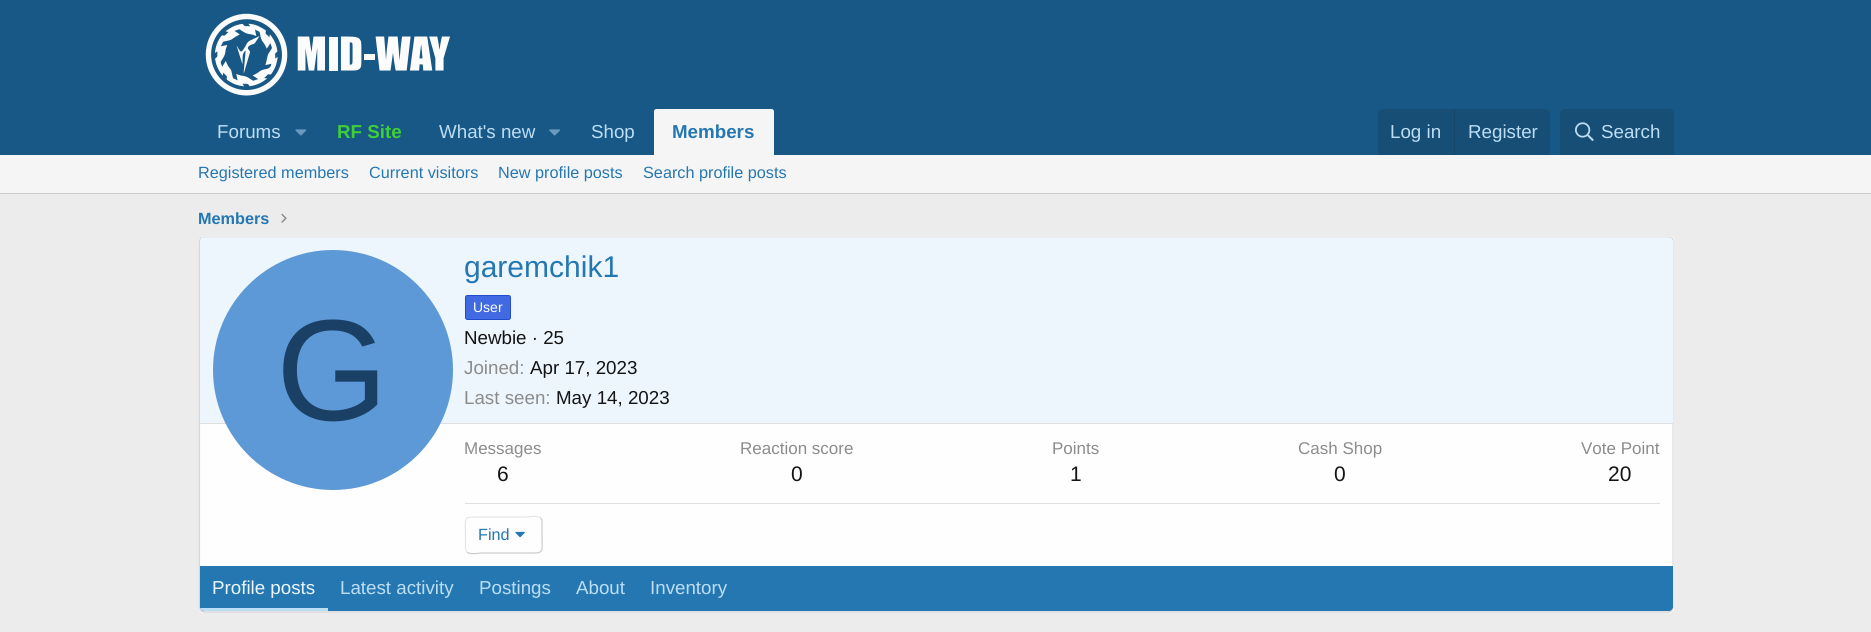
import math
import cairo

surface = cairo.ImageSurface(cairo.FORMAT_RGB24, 1871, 632)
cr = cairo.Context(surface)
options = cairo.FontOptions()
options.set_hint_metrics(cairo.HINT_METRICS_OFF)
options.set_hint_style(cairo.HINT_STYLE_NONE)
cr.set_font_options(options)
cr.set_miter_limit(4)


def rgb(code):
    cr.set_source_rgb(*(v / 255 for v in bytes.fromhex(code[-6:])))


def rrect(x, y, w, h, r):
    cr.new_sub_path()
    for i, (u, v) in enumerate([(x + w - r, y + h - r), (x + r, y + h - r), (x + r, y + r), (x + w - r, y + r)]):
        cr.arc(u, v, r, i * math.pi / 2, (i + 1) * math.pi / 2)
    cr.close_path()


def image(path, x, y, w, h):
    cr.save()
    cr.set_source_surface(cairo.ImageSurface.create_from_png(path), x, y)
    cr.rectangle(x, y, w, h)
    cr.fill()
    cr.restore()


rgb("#ececec")
cr.paint()
rgb("#185886")
cr.rectangle(0, 0, 1871, 155)
cr.fill()
image("img/1.png", 205, 13, 245, 83)
image("img/2.png", 295, 129, 12, 7)
image("img/3.png", 549, 129, 11, 7)
rgb("#f5f5f5")
cr.new_path()
cr.move_to(656.5, 109)
cr.line_to(771.5, 109)
cr.curve_to(773, 109, 774, 110, 774, 111.5)
cr.line_to(774, 155)
cr.line_to(654, 155)
cr.line_to(654, 111.5)
cr.curve_to(654, 110, 655, 109, 656.5, 109)
cr.close_path()
cr.fill()
rgb("#174e75")
cr.new_path()
cr.move_to(1383, 109)
cr.line_to(1545, 109)
cr.curve_to(1548, 109, 1550, 111, 1550, 114)
cr.line_to(1550, 155)
cr.line_to(1378, 155)
cr.line_to(1378, 114)
cr.curve_to(1378, 111, 1380, 109, 1383, 109)
cr.close_path()
cr.fill()
rgb("#174566")
cr.rectangle(1454, 109, 1, 46)
cr.fill()
rgb("#174e75")
cr.new_path()
cr.move_to(1565, 109)
cr.line_to(1669, 109)
cr.curve_to(1672, 109, 1674, 111, 1674, 114)
cr.line_to(1674, 155)
cr.line_to(1560, 155)
cr.line_to(1560, 114)
cr.curve_to(1560, 111, 1562, 109, 1565, 109)
cr.close_path()
cr.fill()
image("img/4.png", 1575, 122, 19, 19)
rgb("#f5f5f5")
cr.rectangle(0, 155, 1871, 38)
cr.fill()
rgb("#cbcbcb")
cr.rectangle(0, 193, 1871, 1)
cr.fill()
image("img/5.png", 281, 213, 6, 10)
rgb("#fefefe")
rrect(199, 236, 1475, 377, 5)
cr.fill()
cr.new_path()
cr.move_to(200.5, 238)
cr.line_to(204, 237)
cr.line_to(1669, 237)
cr.line_to(1672, 238)
rgb("#dfdfdf")
cr.set_line_width(1.2)
cr.stroke()
cr.new_path()
cr.move_to(1672, 238)
cr.line_to(1673, 241)
cr.line_to(1673, 607.5)
cr.line_to(1672, 610.5)
rgb("#d8d8d8")
cr.stroke()
cr.new_path()
cr.move_to(1672, 610.5)
cr.line_to(1669, 612)
cr.line_to(204, 612)
cr.line_to(200.5, 610.5)
rgb("#cbcbcb")
cr.stroke()
cr.new_path()
cr.move_to(200.5, 610.5)
cr.line_to(199.5, 607.5)
cr.line_to(199.5, 241)
cr.line_to(200.5, 238)
rgb("#d8d8d8")
cr.stroke()
rgb("#edf6fd")
cr.new_path()
cr.move_to(204, 238)
cr.line_to(1669, 238)
cr.curve_to(1671, 238, 1673, 240, 1673, 242)
cr.line_to(1673, 424)
cr.line_to(200, 424)
cr.line_to(200, 242)
cr.curve_to(200, 240, 202, 238, 204, 238)
cr.close_path()
cr.fill()
rgb("#dfdfdf")
cr.rectangle(200, 423, 1473, 1)
cr.fill()
rgb("#5c99d6")
cr.arc(333, 370, 120, 0, 2 * math.pi)
cr.fill()
rgb("#4169e1")
rrect(465.5, 295.5, 45, 24, 2)
cr.fill_preserve()
rgb("#214cce")
cr.set_line_width(1)
cr.stroke()
rgb("#dfdfdf")
cr.rectangle(465, 503, 1195, 1)
cr.fill()
cr.new_path()
cr.move_to(540.5, 518)
cr.curve_to(542.5, 520, 542, 523.5, 542, 526)
cr.line_to(542, 535)
cr.curve_to(542, 554, 545, 553, 526, 553)
cr.line_to(481, 553)
cr.curve_to(480.5, 553, 470, 555, 467, 552)
rgb("#cbcbcb")
cr.set_line_width(1.2)
cr.stroke()
cr.new_path()
cr.move_to(467, 552)
cr.curve_to(465, 550, 465.5, 546.5, 465.5, 544)
cr.line_to(465.5, 535)
cr.curve_to(465.5, 516, 462.5, 517, 481, 517)
cr.line_to(526, 517)
cr.curve_to(527, 517, 537.5, 515, 540.5, 518)
rgb("#e5e5e5")
cr.stroke()
image("img/6.png", 515, 531, 10, 7)
rgb("#2577b1")
cr.new_path()
cr.move_to(200, 566)
cr.line_to(1673, 566)
cr.line_to(1673, 607)
cr.curve_to(1673, 609, 1671, 611, 1669, 611)
cr.line_to(204, 611)
cr.curve_to(202, 611, 200, 609, 200, 607)
cr.close_path()
cr.fill()
cr.save()
cr.new_path()
cr.move_to(200, 566)
cr.line_to(1673, 566)
cr.line_to(1673, 607)
cr.curve_to(1673, 609, 1671, 611, 1669, 611)
cr.line_to(204, 611)
cr.curve_to(202, 611, 200, 609, 200, 607)
cr.close_path()
cr.clip()
rgb("#bcdef5")
cr.rectangle(200, 608, 128, 3)
cr.fill()
cr.restore()
cr.select_font_face("Liberation Sans")
cr.set_font_size(18.75)
rgb("#bcdef5")
cr.move_to(217, 138)
cr.show_text("Forums")
cr.select_font_face("Liberation Sans", cairo.FONT_SLANT_NORMAL, cairo.FONT_WEIGHT_BOLD)
rgb("#3ece38")
cr.move_to(337, 138)
cr.show_text("RF Site")
cr.select_font_face("Liberation Sans")
rgb("#bcdef5")
cr.move_to(439, 138)
cr.show_text("What's new")
cr.move_to(591, 138)
cr.show_text("Shop")
cr.select_font_face("Liberation Sans", cairo.FONT_SLANT_NORMAL, cairo.FONT_WEIGHT_BOLD)
rgb("#2577b1")
cr.move_to(672, 138)
cr.show_text("Members")
cr.select_font_face("Liberation Sans")
rgb("#bcdef5")
for x, y, s in [
    (1390, 138, "Log in"),
    (1468, 138, "Register"),
    (1601, 138, "Search"),
]:
    cr.move_to(x, y)
    cr.show_text(s)
cr.set_font_size(16.25)
rgb("#2577b1")
for x, y, s in [
    (198, 178, "Registered members"),
    (369, 178, "Current visitors"),
    (498, 178, "New profile posts"),
    (643, 178, "Search profile posts"),
]:
    cr.move_to(x, y)
    cr.show_text(s)
cr.select_font_face("Liberation Sans", cairo.FONT_SLANT_NORMAL, cairo.FONT_WEIGHT_BOLD)
cr.move_to(198, 224)
cr.show_text("Members")
cr.select_font_face("Liberation Sans")
cr.set_font_size(144)
rgb("#1a4066")
cr.move_to(276, 420)
cr.show_text("G")
cr.set_font_size(30)
rgb("#2577b1")
cr.move_to(464, 277)
cr.show_text("garemchik1")
cr.set_font_size(14)
rgb("#ffffff")
cr.move_to(473, 312)
cr.show_text("User")
cr.set_font_size(18.75)
rgb("#141414")
cr.move_to(464, 344)
cr.show_text("Newbie · 25")
rgb("#8c8c8c")
cr.move_to(464, 374)
cr.show_text("Joined:")
rgb("#141414")
cr.move_to(530, 374)
cr.show_text("Apr 17, 2023")
rgb("#8c8c8c")
cr.move_to(464, 404)
cr.show_text("Last seen:")
rgb("#141414")
cr.move_to(556, 404)
cr.show_text("May 14, 2023")
cr.set_font_size(17)
rgb("#8c8c8c")
cr.move_to(464, 454)
cr.show_text("Messages")
cr.set_font_size(21)
rgb("#141414")
cr.move_to(497, 481)
cr.show_text("6")
cr.set_font_size(17)
rgb("#8c8c8c")
cr.move_to(740, 454)
cr.show_text("Reaction score")
cr.set_font_size(21)
rgb("#141414")
cr.move_to(791, 481)
cr.show_text("0")
cr.set_font_size(17)
rgb("#8c8c8c")
cr.move_to(1052, 454)
cr.show_text("Points")
cr.set_font_size(21)
rgb("#141414")
cr.move_to(1070, 481)
cr.show_text("1")
cr.set_font_size(17)
rgb("#8c8c8c")
cr.move_to(1298, 454)
cr.show_text("Cash Shop")
cr.set_font_size(21)
rgb("#141414")
cr.move_to(1334, 481)
cr.show_text("0")
cr.set_font_size(17)
rgb("#8c8c8c")
cr.move_to(1581, 454)
cr.show_text("Vote Point")
cr.set_font_size(21)
rgb("#141414")
cr.move_to(1608, 481)
cr.show_text("20")
cr.set_font_size(16.25)
rgb("#2577b1")
cr.move_to(478, 540)
cr.show_text("Find")
cr.set_font_size(18.75)
rgb("#edf6fd")
cr.move_to(212, 594)
cr.show_text("Profile posts")
rgb("#bcdef5")
for x, y, s in [
    (340, 594, "Latest activity"),
    (479, 594, "Postings"),
    (576, 594, "About"),
    (650, 594, "Inventory"),
]:
    cr.move_to(x, y)
    cr.show_text(s)
surface.write_to_png("page.png")
